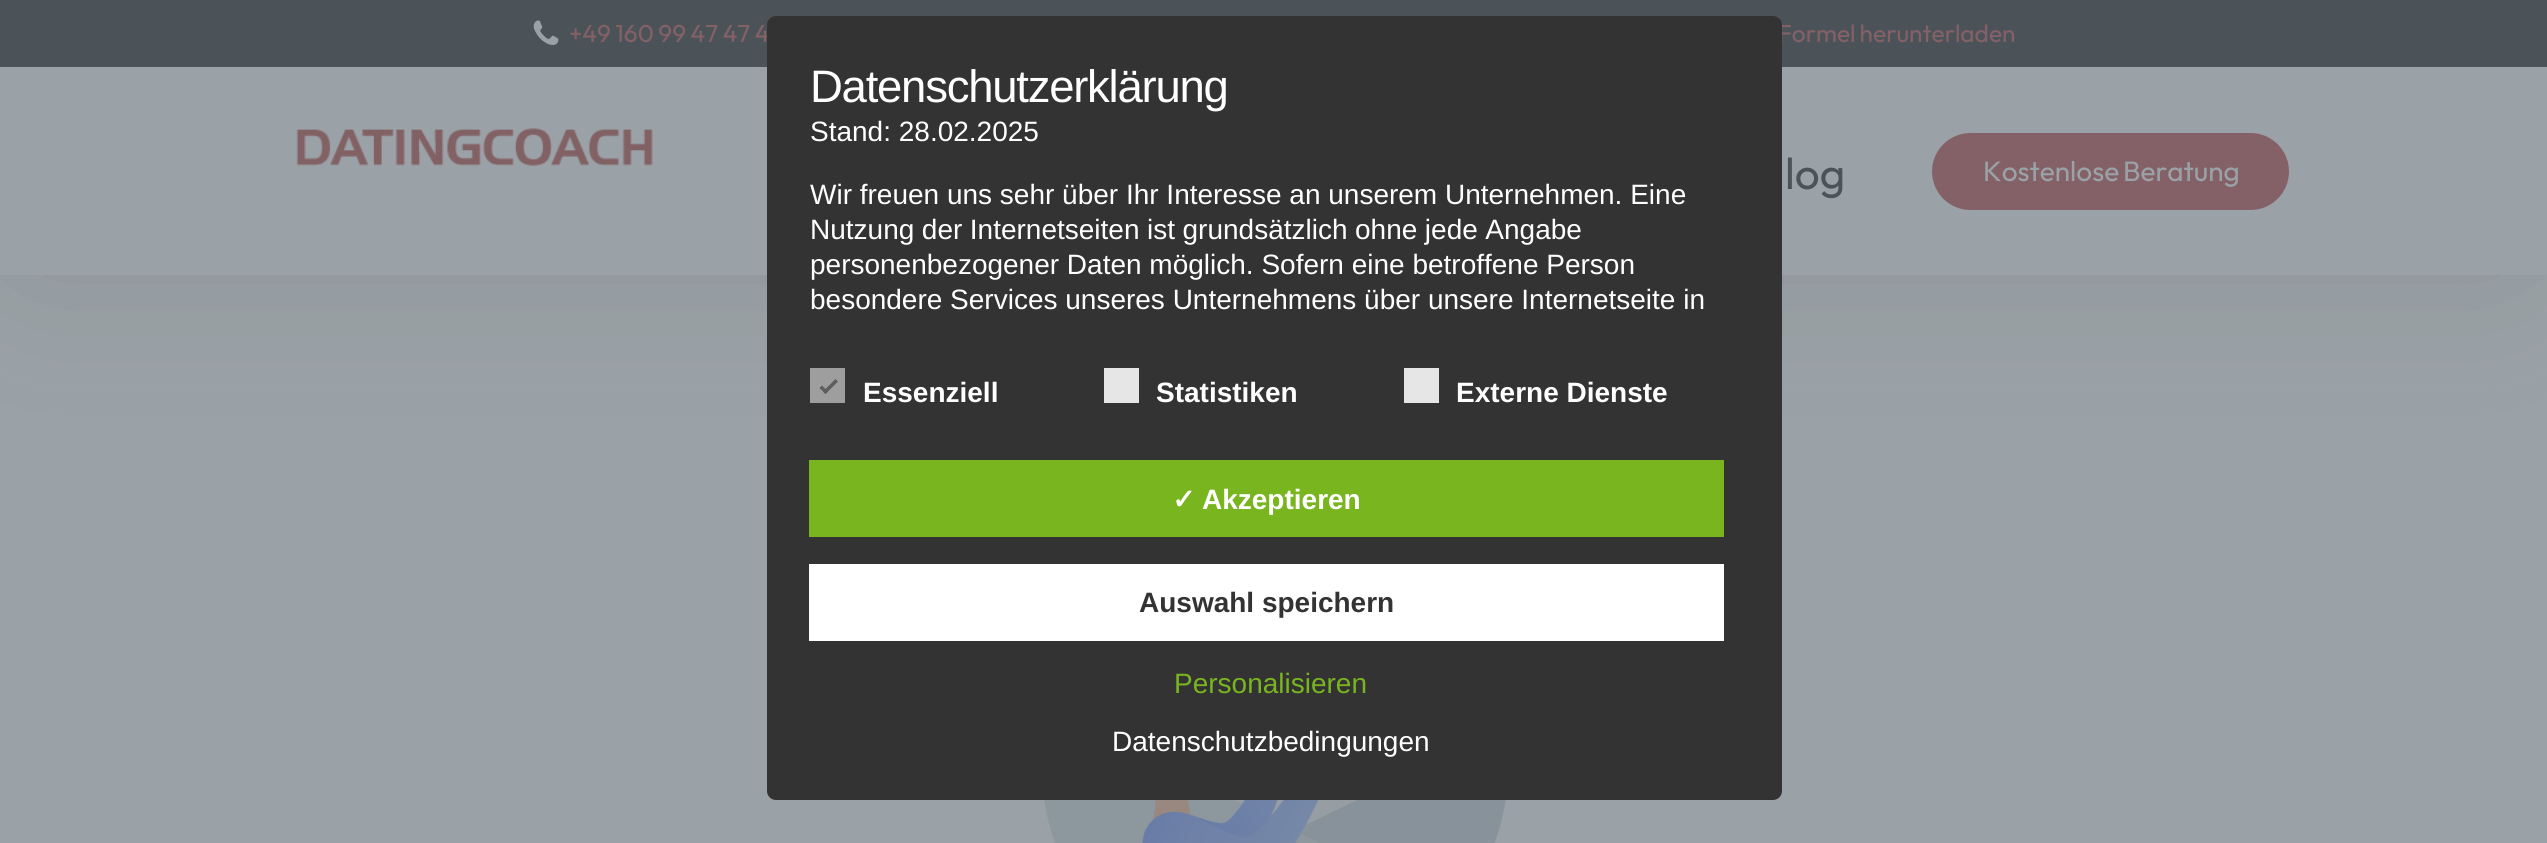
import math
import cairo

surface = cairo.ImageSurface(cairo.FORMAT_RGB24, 2547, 843)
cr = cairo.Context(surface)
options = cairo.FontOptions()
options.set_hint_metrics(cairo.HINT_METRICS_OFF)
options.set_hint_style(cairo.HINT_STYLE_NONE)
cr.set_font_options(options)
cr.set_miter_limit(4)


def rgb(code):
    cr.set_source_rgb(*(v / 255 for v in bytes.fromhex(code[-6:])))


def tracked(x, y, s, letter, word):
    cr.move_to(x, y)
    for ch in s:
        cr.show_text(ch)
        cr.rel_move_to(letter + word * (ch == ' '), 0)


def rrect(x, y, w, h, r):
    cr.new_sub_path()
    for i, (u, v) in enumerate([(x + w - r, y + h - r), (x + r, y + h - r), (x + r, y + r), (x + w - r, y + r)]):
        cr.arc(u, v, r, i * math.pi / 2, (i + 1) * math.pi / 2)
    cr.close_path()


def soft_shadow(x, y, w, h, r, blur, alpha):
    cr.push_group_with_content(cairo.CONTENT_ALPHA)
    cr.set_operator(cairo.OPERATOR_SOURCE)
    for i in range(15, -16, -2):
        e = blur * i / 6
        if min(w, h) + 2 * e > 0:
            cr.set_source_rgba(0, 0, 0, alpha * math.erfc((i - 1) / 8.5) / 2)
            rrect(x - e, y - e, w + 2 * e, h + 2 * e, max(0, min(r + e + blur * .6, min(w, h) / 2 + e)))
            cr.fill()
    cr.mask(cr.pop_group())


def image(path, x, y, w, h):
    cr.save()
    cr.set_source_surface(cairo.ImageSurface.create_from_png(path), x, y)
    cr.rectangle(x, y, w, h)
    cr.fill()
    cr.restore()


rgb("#9ba2a7")
cr.paint()
rgb("#3f464b")
soft_shadow(32, 107, 2478, 138, 0, 79, 0.25)
rgb("#4c5358")
cr.rectangle(0, 0, 2547, 67)
cr.fill()
image("img/1.png", 533, 20, 26, 25)
rgb("#9ba2a7")
cr.rectangle(0, 67, 2547, 208)
cr.fill()
image("img/2.png", 296, 128, 357, 38)
rgb("#836166")
rrect(1932, 133, 357, 77, 38.5)
cr.fill()
image("img/3.png", 1043, 800, 463, 43)
cr.select_font_face("Outfit")
cr.set_font_size(24.5)
tracked(569, 42, "+49 160 99 47 47 4", 0, -0.5)
tracked(1778, 42, "Formel herunterladen", 0, -1)
cr.set_font_size(44)
rgb("#4c5358")
cr.move_to(1785, 189)
cr.show_text("log")
cr.set_font_size(28)
rgb("#9ba2a7")
tracked(1983, 181, "Kostenlose Beratung", 0, -2)
rgb("#333333")
rrect(767, 16, 1015, 784, 9)
cr.fill()
cr.select_font_face("Liberation Sans")
cr.set_font_size(45.5)
rgb("#ffffff")
tracked(810, 102, "Datenschutzerklärung", -1.25, 0)
cr.set_font_size(28)
cr.move_to(810, 141)
cr.show_text("Stand: 28.02.2025")
cr.move_to(810, 204)
cr.show_text("Wir freuen uns sehr über Ihr Interesse an unserem Unternehmen. Eine")
tracked(810, 239, "Nutzung der Internetseiten ist grundsätzlich ohne jede Angabe", 0, -0.25)
cr.move_to(810, 274)
cr.show_text("personenbezogener Daten möglich. Sofern eine betroffene Person")
cr.move_to(810, 309)
cr.show_text("besondere Services unseres Unternehmens über unsere Internetseite in")
rgb("#9e9e9e")
cr.rectangle(810, 368, 35, 35)
cr.fill()
rgb("#5e5e5e")
cr.new_path()
cr.move_to(835.5, 379)
cr.line_to(838, 381.5)
cr.line_to(825.5, 394)
cr.line_to(823, 391.5)
cr.close_path()
cr.fill()
cr.new_path()
cr.move_to(822, 385.5)
cr.line_to(828, 391.5)
cr.line_to(825.5, 394)
cr.line_to(819.5, 388)
cr.close_path()
cr.fill()
cr.select_font_face("Liberation Sans", cairo.FONT_SLANT_NORMAL, cairo.FONT_WEIGHT_BOLD)
rgb("#ffffff")
cr.move_to(863, 402)
cr.show_text("Essenziell")
rgb("#e6e6e6")
cr.rectangle(1104, 368, 35, 35)
cr.fill()
rgb("#ffffff")
cr.move_to(1156, 402)
cr.show_text("Statistiken")
rgb("#e6e6e6")
cr.rectangle(1404, 368, 35, 35)
cr.fill()
rgb("#ffffff")
cr.move_to(1456, 402)
cr.show_text("Externe Dienste")
rgb("#79b51f")
cr.rectangle(809, 460, 915, 77)
cr.fill()
cr.select_font_face("DejaVu Sans", cairo.FONT_SLANT_NORMAL, cairo.FONT_WEIGHT_BOLD)
rgb("#ffffff")
cr.move_to(1172, 509)
cr.show_text("✓")
cr.select_font_face("Liberation Sans", cairo.FONT_SLANT_NORMAL, cairo.FONT_WEIGHT_BOLD)
cr.move_to(1202, 509)
cr.show_text("Akzeptieren")
cr.rectangle(809, 564, 915, 77)
cr.fill()
rgb("#333333")
cr.move_to(1139, 612)
cr.show_text("Auswahl speichern")
cr.select_font_face("Liberation Sans")
rgb("#79b51f")
cr.move_to(1174, 693)
cr.show_text("Personalisieren")
rgb("#ffffff")
cr.move_to(1112, 751)
cr.show_text("Datenschutzbedingungen")
surface.write_to_png("page.png")
